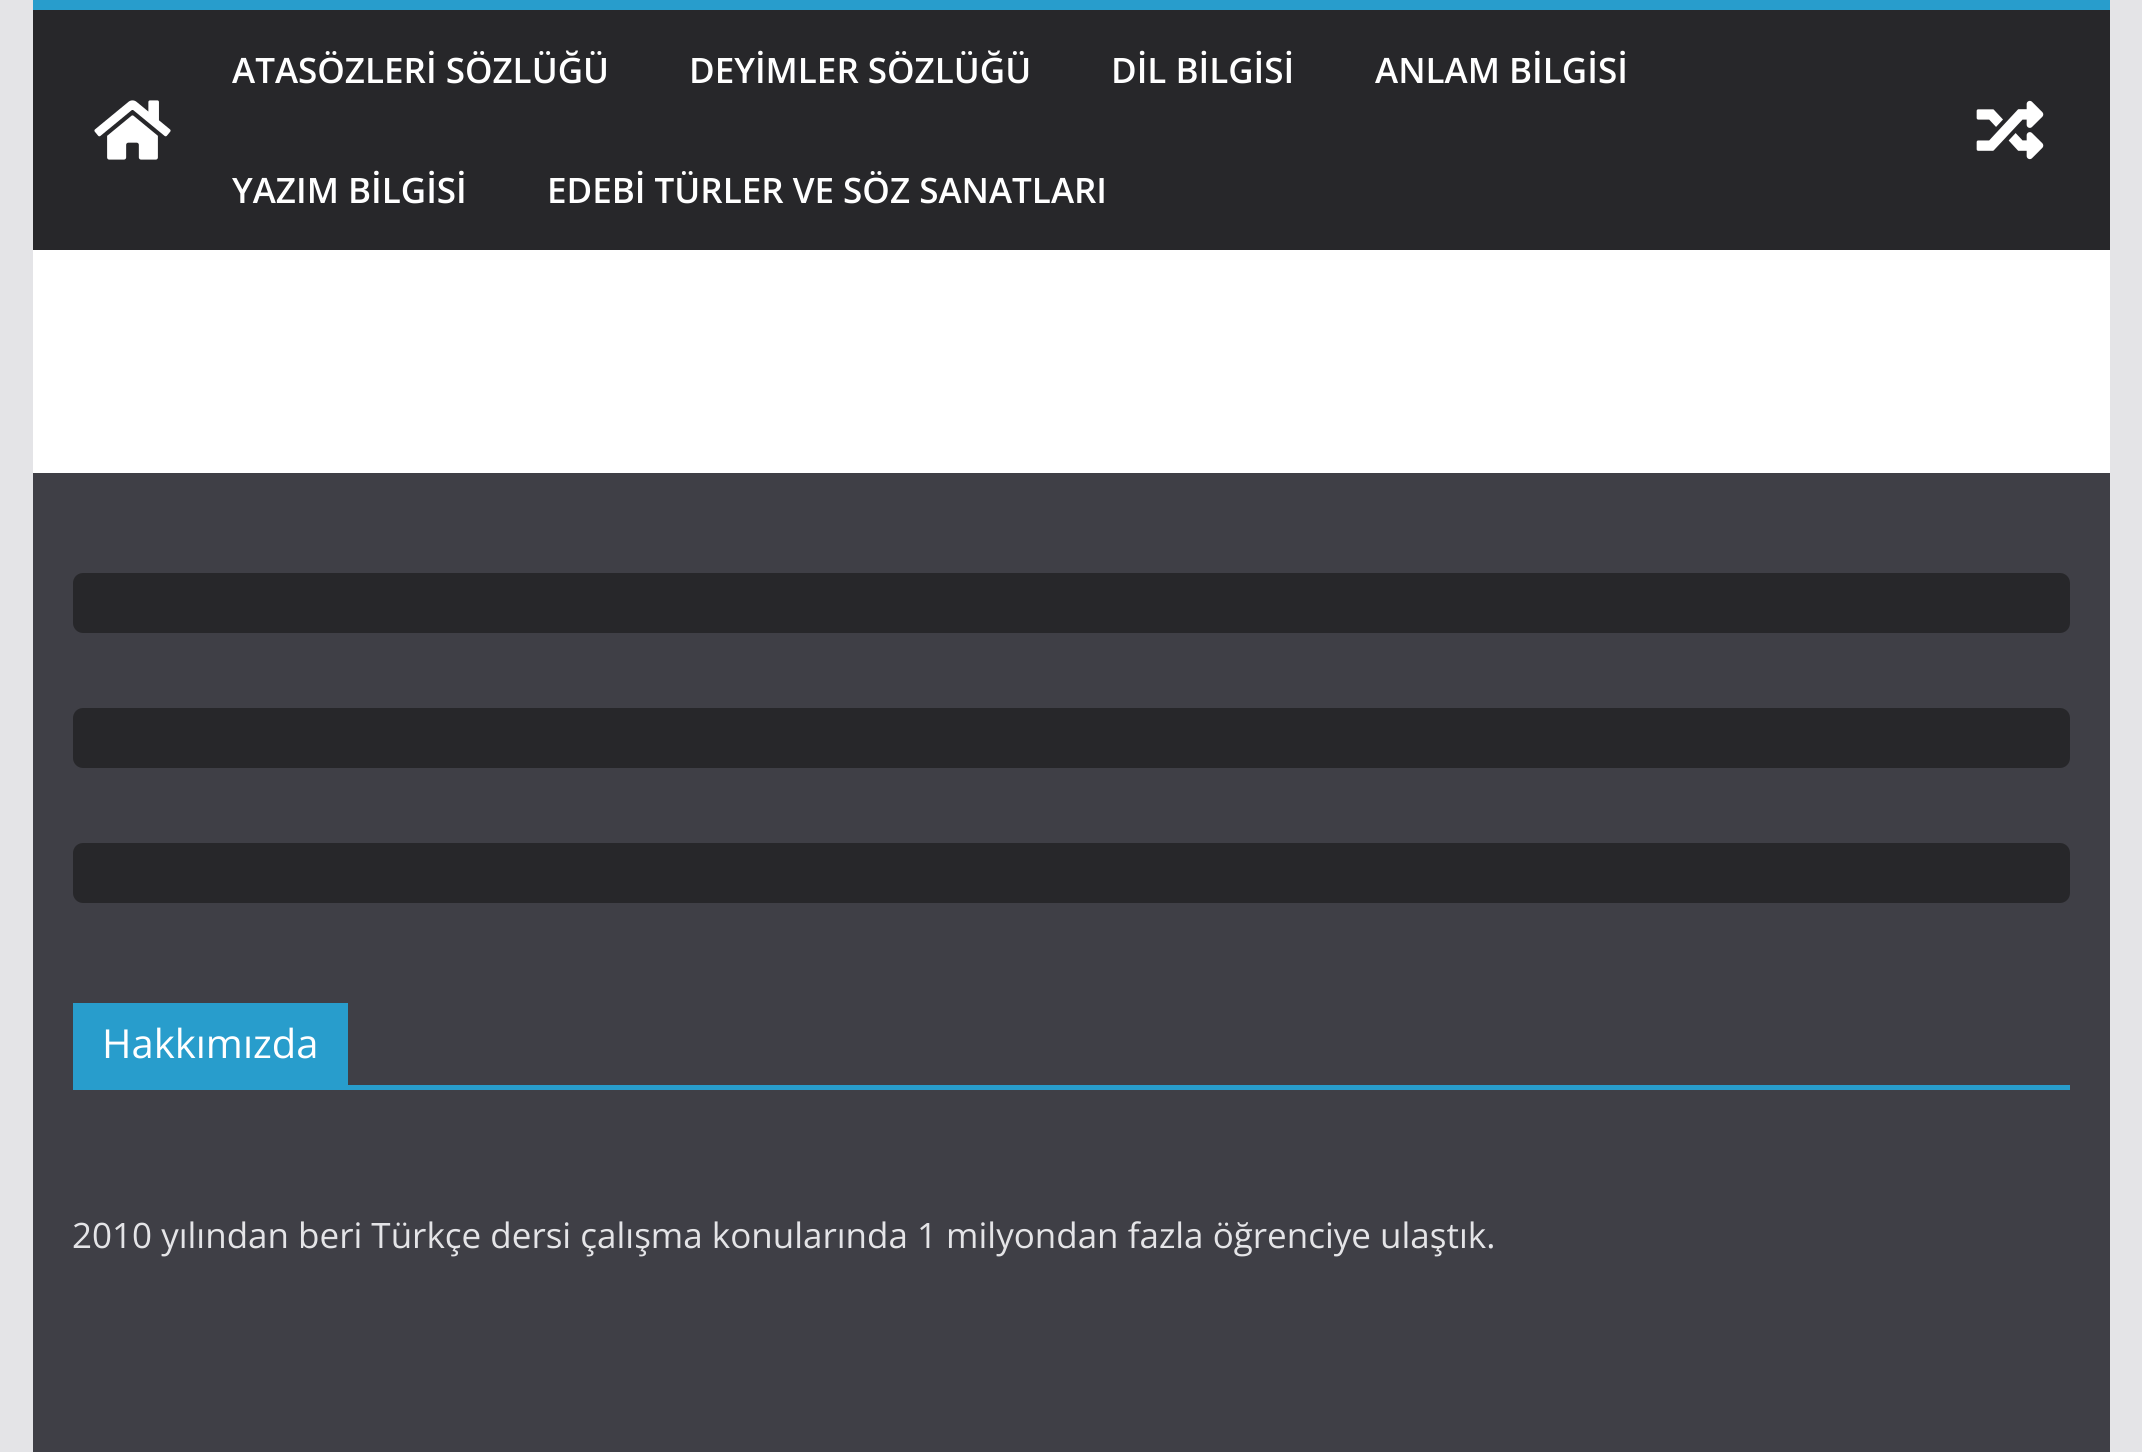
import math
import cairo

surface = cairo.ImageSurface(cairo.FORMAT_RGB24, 2142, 1452)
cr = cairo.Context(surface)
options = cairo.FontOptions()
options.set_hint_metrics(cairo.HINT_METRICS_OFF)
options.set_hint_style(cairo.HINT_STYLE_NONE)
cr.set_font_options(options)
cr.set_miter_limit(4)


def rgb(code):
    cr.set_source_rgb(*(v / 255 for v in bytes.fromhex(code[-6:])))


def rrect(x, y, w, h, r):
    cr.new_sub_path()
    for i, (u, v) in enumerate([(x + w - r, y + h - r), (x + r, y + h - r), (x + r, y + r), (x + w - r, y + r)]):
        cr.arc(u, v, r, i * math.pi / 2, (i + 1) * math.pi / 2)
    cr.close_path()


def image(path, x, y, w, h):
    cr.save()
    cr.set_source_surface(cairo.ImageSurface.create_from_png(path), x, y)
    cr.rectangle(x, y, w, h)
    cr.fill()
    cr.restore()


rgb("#e4e4e7")
cr.paint()
rgb("#27272a")
cr.rectangle(33, 10, 2077, 240)
cr.fill()
rgb("#289dcc")
cr.rectangle(33, 0, 2077, 10)
cr.fill()
image("img/1.png", 94, 100, 77, 60)
image("img/2.png", 1976, 100, 68, 60)
rgb("#ffffff")
cr.rectangle(33, 250, 2077, 223)
cr.fill()
rgb("#3f3f46")
cr.rectangle(33, 473, 2077, 979)
cr.fill()
rgb("#27272a")
rrect(73, 573, 1997, 60, 10)
cr.fill()
rrect(73, 708, 1997, 60, 10)
cr.fill()
rrect(73, 843, 1997, 60, 10)
cr.fill()
rgb("#289dcc")
cr.rectangle(73, 1085, 1997, 5)
cr.fill()
cr.rectangle(73, 1003, 275, 82)
cr.fill()
cr.select_font_face("Open Sans SemiBold")
cr.set_font_size(35)
rgb("#ffffff")
for x, y, s in [
    (232, 83, "ATASÖZLERİ SÖZLÜĞÜ"),
    (689, 83, "DEYİMLER SÖZLÜĞÜ"),
    (1111, 83, "DİL BİLGİSİ"),
    (1375, 83, "ANLAM BİLGİSİ"),
    (232, 203, "YAZIM BİLGİSİ"),
    (547, 203, "EDEBİ TÜRLER VE SÖZ SANATLARI"),
]:
    cr.move_to(x, y)
    cr.show_text(s)
cr.select_font_face("Open Sans")
cr.set_font_size(40)
cr.move_to(102, 1058)
cr.show_text("Hakkımızda")
cr.set_font_size(35)
rgb("#e4e4e7")
cr.move_to(72, 1248)
cr.show_text("2010 yılından beri Türkçe dersi çalışma konularında 1 milyondan fazla öğrenciye ulaştık.")
surface.write_to_png("page.png")
